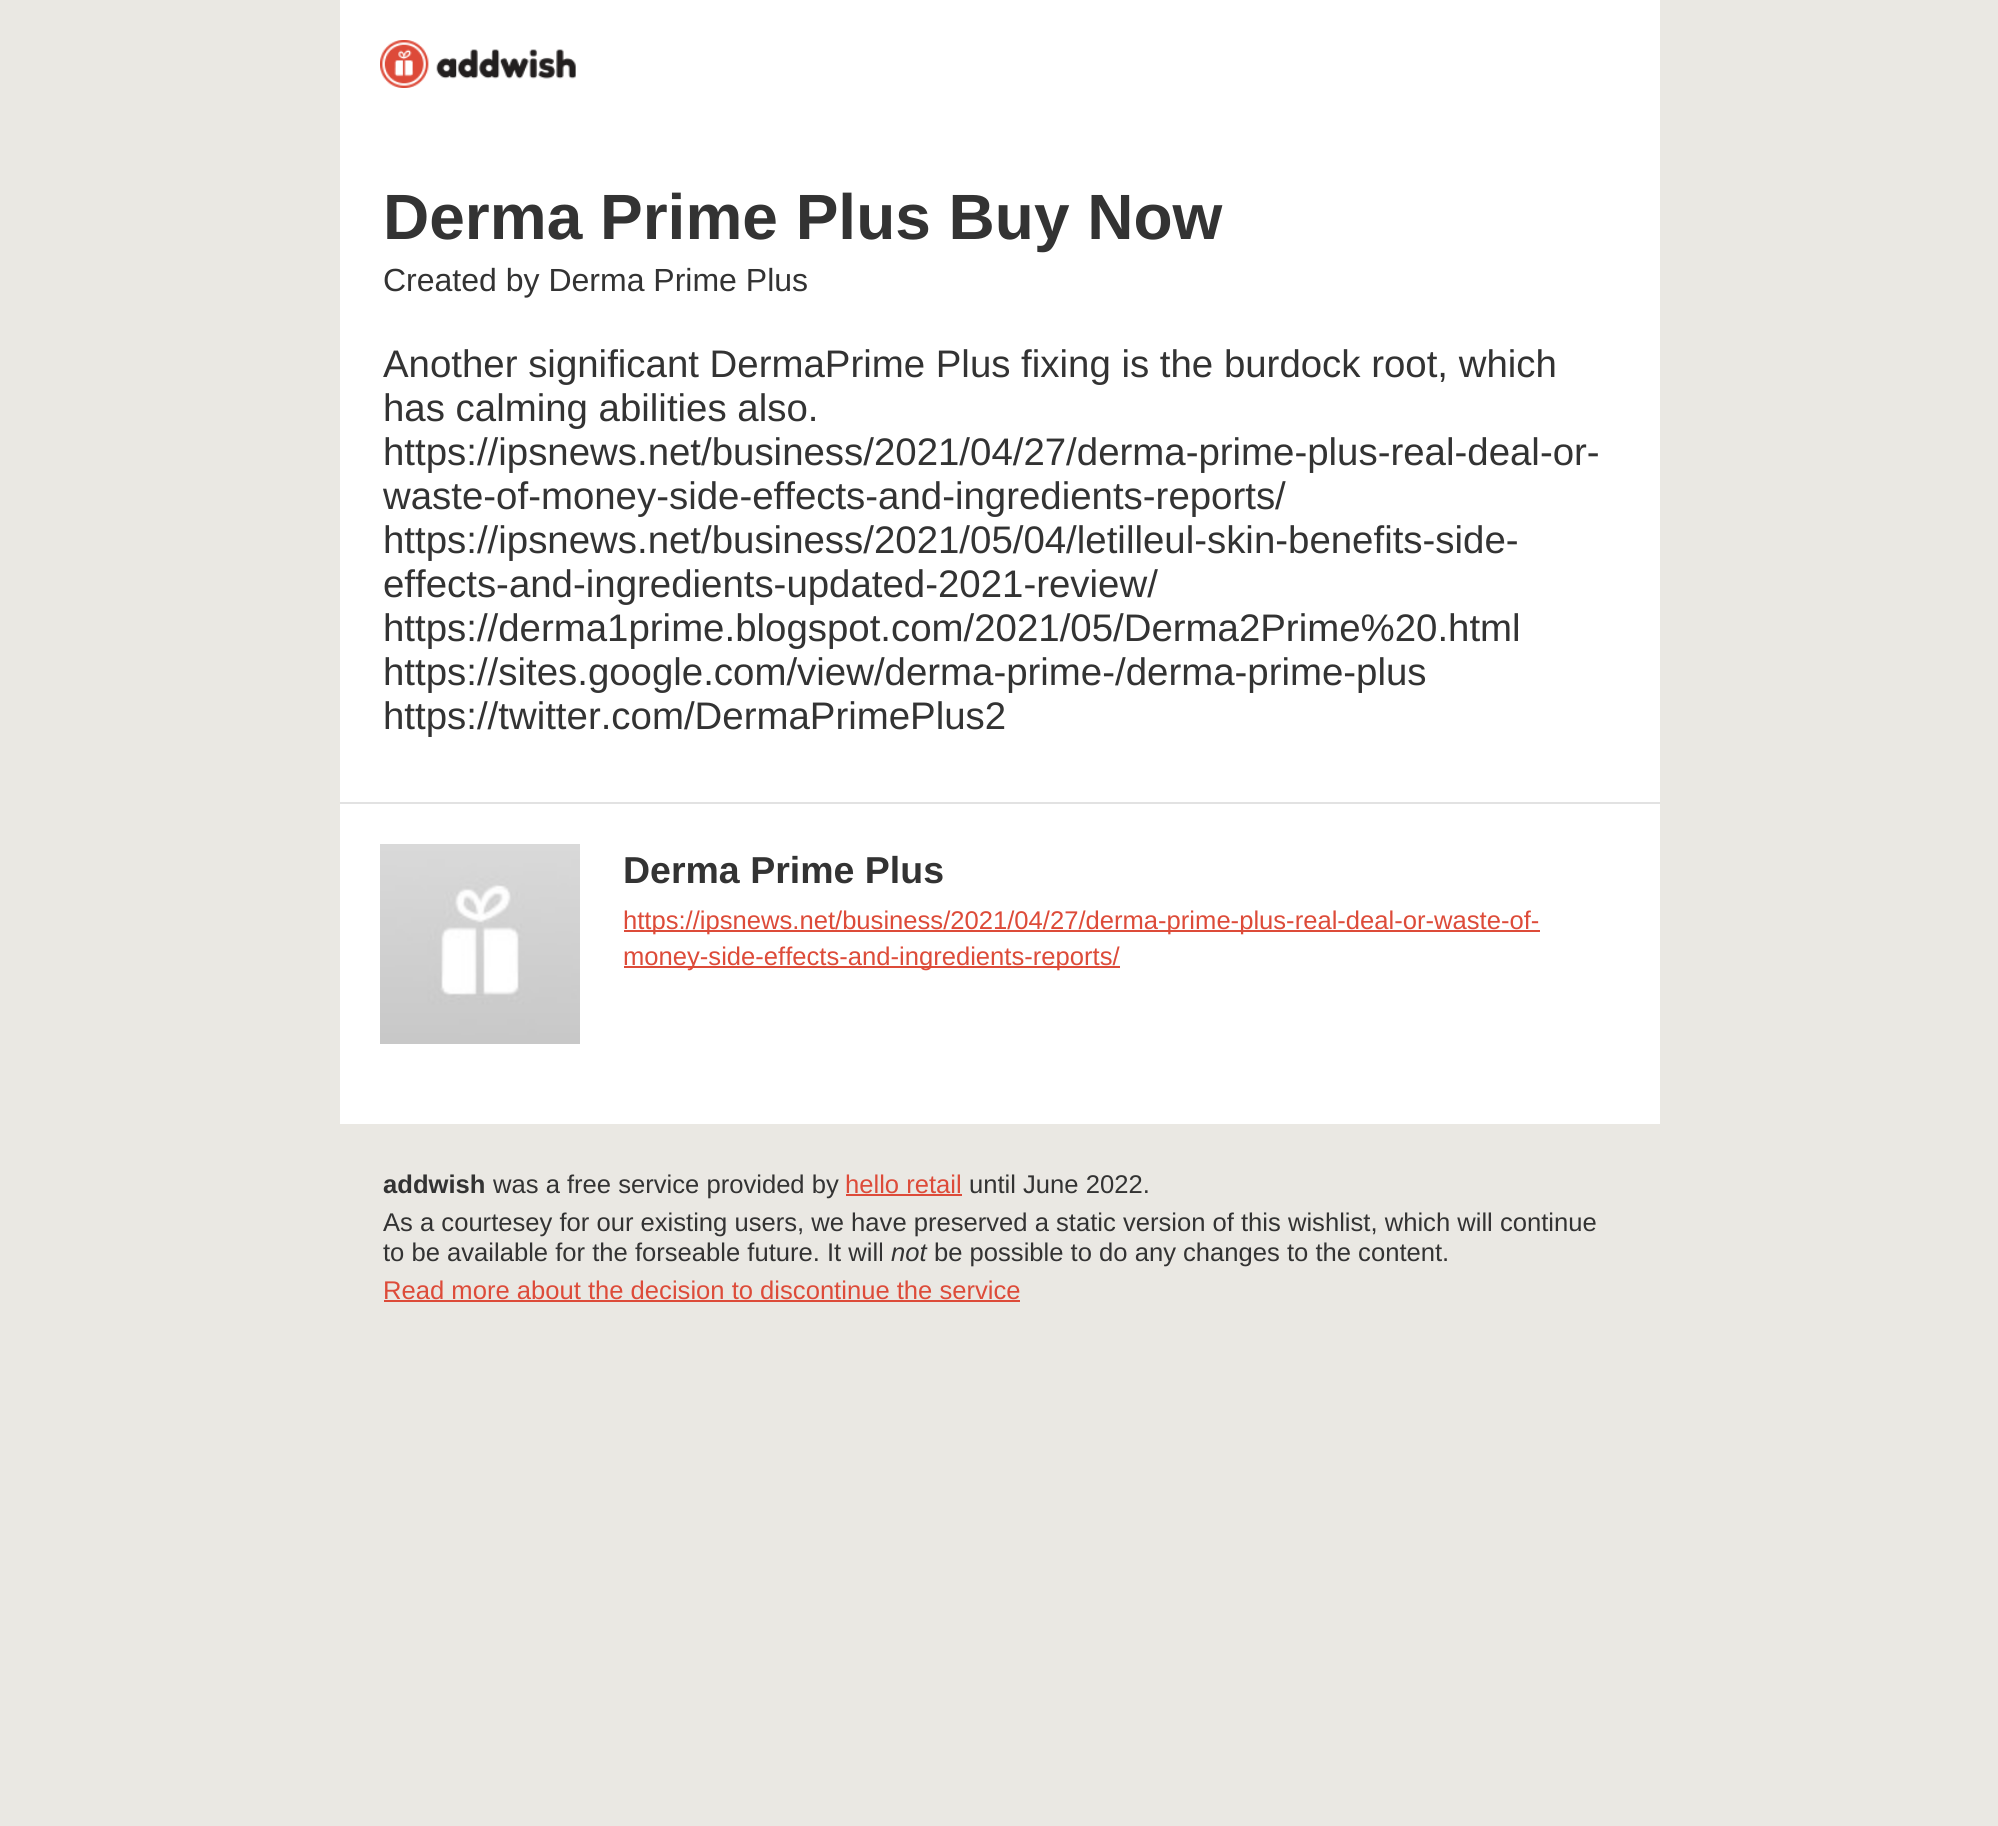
import math
import cairo

surface = cairo.ImageSurface(cairo.FORMAT_RGB24, 1998, 1826)
cr = cairo.Context(surface)
options = cairo.FontOptions()
options.set_hint_metrics(cairo.HINT_METRICS_OFF)
options.set_hint_style(cairo.HINT_STYLE_NONE)
cr.set_font_options(options)
cr.set_miter_limit(4)


def rgb(code):
    cr.set_source_rgb(*(v / 255 for v in bytes.fromhex(code[-6:])))


def image(path, x, y, w, h):
    cr.save()
    cr.set_source_surface(cairo.ImageSurface.create_from_png(path), x, y)
    cr.rectangle(x, y, w, h)
    cr.fill()
    cr.restore()


rgb("#eae8e3")
cr.paint()
rgb("#ffffff")
cr.rectangle(340, 0, 1320, 1124)
cr.fill()
image("img/1.png", 380, 40, 196, 48)
rgb("#e2e2e2")
cr.rectangle(340, 802, 1320, 2)
cr.fill()
image("img/2.png", 380, 844, 200, 200)
for x, y, w, h, color in [
    (624, 930, 916, 2, "#dd4b39"),
    (624, 966, 496, 2, "#dd4b39"),
    (846, 1194, 116, 2, "#dd4b39"),
    (384, 1300, 636, 2, "#dd4b39"),
]:
    rgb(color)
    cr.rectangle(x, y, w, h)
    cr.fill()
cr.select_font_face("Liberation Sans", cairo.FONT_SLANT_NORMAL, cairo.FONT_WEIGHT_BOLD)
cr.set_font_size(64)
rgb("#333333")
cr.move_to(383, 239)
cr.show_text("Derma Prime Plus Buy Now")
cr.select_font_face("Liberation Sans")
cr.set_font_size(32)
cr.move_to(383, 291)
cr.show_text("Created by Derma Prime Plus")
cr.set_font_size(38.4)
for x, y, s in [
    (383, 377, "Another significant DermaPrime Plus fixing is the burdock root, which"),
    (383, 421, "has calming abilities also."),
    (383, 465, "https://ipsnews.net/business/2021/04/27/derma-prime-plus-real-deal-or-"),
    (383, 509, "waste-of-money-side-effects-and-ingredients-reports/"),
    (383, 553, "https://ipsnews.net/business/2021/05/04/letilleul-skin-benefits-side-"),
    (383, 597, "effects-and-ingredients-updated-2021-review/"),
    (383, 641, "https://derma1prime.blogspot.com/2021/05/Derma2Prime%20.html"),
    (383, 685, "https://sites.google.com/view/derma-prime-/derma-prime-plus"),
    (383, 729, "https://twitter.com/DermaPrimePlus2"),
]:
    cr.move_to(x, y)
    cr.show_text(s)
cr.select_font_face("Liberation Sans", cairo.FONT_SLANT_NORMAL, cairo.FONT_WEIGHT_BOLD)
cr.set_font_size(37.5)
cr.move_to(623, 883)
cr.show_text("Derma Prime Plus")
cr.select_font_face("Liberation Sans")
cr.set_font_size(25.6)
rgb("#dd4b39")
cr.move_to(623, 929)
cr.show_text("https://ipsnews.net/business/2021/04/27/derma-prime-plus-real-deal-or-waste-of-")
cr.move_to(623, 965)
cr.show_text("money-side-effects-and-ingredients-reports/")
cr.select_font_face("Liberation Sans", cairo.FONT_SLANT_NORMAL, cairo.FONT_WEIGHT_BOLD)
rgb("#333333")
cr.move_to(383, 1193)
cr.show_text("addwish")
cr.select_font_face("Liberation Sans")
cr.move_to(493, 1193)
cr.show_text("was a free service provided by")
rgb("#dd4b39")
cr.move_to(845, 1193)
cr.show_text("hello retail")
rgb("#333333")
for x, y, s in [
    (969, 1193, "until June 2022."),
    (383, 1231, "As a courtesey for our existing users, we have preserved a static version of this wishlist, which will continue"),
    (383, 1261, "to be available for the forseable future. It will"),
]:
    cr.move_to(x, y)
    cr.show_text(s)
cr.select_font_face("Liberation Sans", cairo.FONT_SLANT_ITALIC)
cr.move_to(891, 1261)
cr.show_text("not")
cr.select_font_face("Liberation Sans")
cr.move_to(934, 1261)
cr.show_text("be possible to do any changes to the content.")
rgb("#dd4b39")
cr.move_to(383, 1299)
cr.show_text("Read more about the decision to discontinue the service")
surface.write_to_png("page.png")
